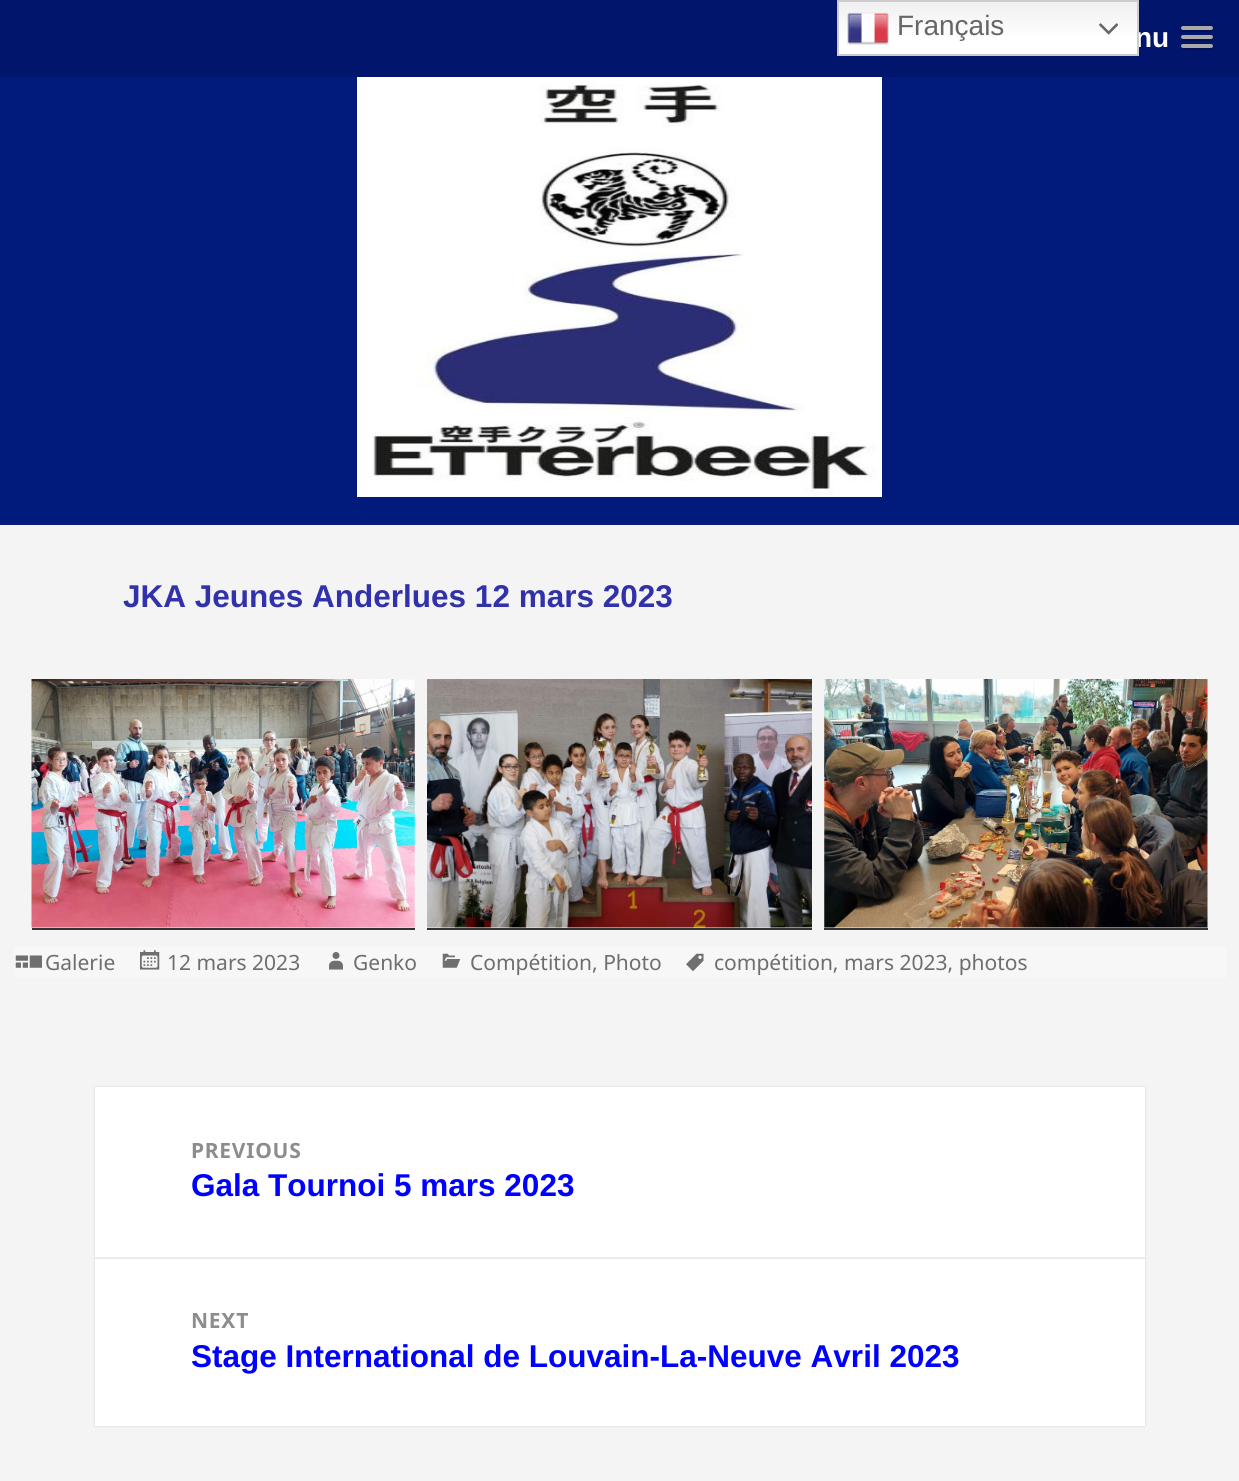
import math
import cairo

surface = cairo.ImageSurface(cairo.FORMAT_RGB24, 1239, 1481)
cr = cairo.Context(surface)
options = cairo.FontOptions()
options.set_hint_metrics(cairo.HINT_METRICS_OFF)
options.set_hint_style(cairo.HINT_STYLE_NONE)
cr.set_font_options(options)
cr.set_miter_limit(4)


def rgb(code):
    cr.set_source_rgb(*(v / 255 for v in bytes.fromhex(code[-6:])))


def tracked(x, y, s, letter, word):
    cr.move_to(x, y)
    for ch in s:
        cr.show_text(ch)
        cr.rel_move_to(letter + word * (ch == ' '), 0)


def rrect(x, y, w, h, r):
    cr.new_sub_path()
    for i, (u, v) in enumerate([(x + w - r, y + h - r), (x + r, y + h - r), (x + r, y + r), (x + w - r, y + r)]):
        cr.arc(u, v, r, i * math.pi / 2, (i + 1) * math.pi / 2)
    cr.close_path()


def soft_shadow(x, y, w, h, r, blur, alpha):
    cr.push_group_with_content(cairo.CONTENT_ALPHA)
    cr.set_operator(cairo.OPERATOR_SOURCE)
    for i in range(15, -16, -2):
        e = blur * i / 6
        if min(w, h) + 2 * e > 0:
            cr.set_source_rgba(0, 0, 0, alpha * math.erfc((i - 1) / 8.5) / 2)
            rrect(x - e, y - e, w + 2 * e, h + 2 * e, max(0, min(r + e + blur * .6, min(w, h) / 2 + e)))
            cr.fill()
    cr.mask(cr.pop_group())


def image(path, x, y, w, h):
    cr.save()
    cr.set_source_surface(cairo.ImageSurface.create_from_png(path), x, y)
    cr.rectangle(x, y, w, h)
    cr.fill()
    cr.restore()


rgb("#f4f4f4")
cr.paint()
rgb("#02156d")
cr.rectangle(0, 0, 1239, 77)
cr.fill()
rgb("#021052")
cr.new_path()
cr.move_to(1181.5, 29)
cr.line_to(1181, 30.5)
cr.curve_to(1181.5, 33, 1186.5, 32, 1187.5, 32)
cr.line_to(1206.5, 32)
cr.curve_to(1207.5, 32, 1212.5, 33, 1213, 30.5)
cr.line_to(1212.5, 29)
cr.curve_to(1212.5, 29.5, 1211.5, 30, 1211, 30)
cr.line_to(1183, 30)
cr.curve_to(1182.5, 30, 1181.5, 29.5, 1181.5, 29)
cr.close_path()
cr.fill()
rgb("#a8a9ac")
rrect(1181, 26, 32, 4, 2)
cr.fill()
rgb("#021052")
cr.new_path()
cr.move_to(1181.5, 37.5)
cr.curve_to(1180.5, 39, 1181, 40.5, 1182.5, 41)
cr.line_to(1211.5, 41)
cr.curve_to(1213, 40.5, 1213.5, 39, 1212.5, 37.5)
cr.line_to(1211, 38.5)
cr.line_to(1183, 38.5)
cr.close_path()
cr.fill()
rgb("#a8a9ac")
rrect(1181, 35, 32, 4, 2)
cr.fill()
rgb("#021052")
cr.new_path()
cr.move_to(1181.5, 46.5)
cr.curve_to(1180.5, 47.5, 1181, 49, 1182, 49.5)
cr.curve_to(1183, 50.5, 1207.5, 50, 1211, 50)
cr.curve_to(1213, 50, 1213.5, 48, 1212.5, 46.5)
cr.line_to(1211, 47)
cr.line_to(1183, 47)
cr.close_path()
cr.fill()
rgb("#a8a9ac")
rrect(1181, 44, 32, 4, 2)
cr.fill()
rgb("#001b7c")
cr.rectangle(0, 77, 1239, 446)
cr.fill()
rgb("#051d75")
cr.rectangle(0, 523, 1239, 2)
cr.fill()
image("img/3.png", 357, 77, 525, 420)
rgb("#333333")
cr.rectangle(32, 928, 383, 2)
cr.fill()
image("img/4.png", 31, 679, 384, 249)
cr.rectangle(427, 928, 385, 2)
cr.fill()
image("img/5.png", 427, 679, 385, 249)
cr.rectangle(824, 928, 384, 2)
cr.fill()
image("img/6.png", 824, 679, 384, 249)
rgb("#f7f7f7")
cr.rectangle(14, 947, 1213, 31)
cr.fill()
image("img/7.png", 15, 955, 27, 13)
image("img/8.png", 140, 950, 20, 20)
image("img/9.png", 329, 952, 14, 18)
image("img/10.png", 442, 953, 19, 15)
image("img/11.png", 686, 953, 18, 19)
rgb("#000000")
soft_shadow(95, 1087, 1050, 339, 0, 1, 0.15)
rgb("#ffffff")
cr.rectangle(95, 1087, 1050, 339)
cr.fill()
rgb("#ebebeb")
cr.rectangle(95, 1257, 1050, 2)
cr.fill()
cr.select_font_face("Liberation Sans", cairo.FONT_SLANT_NORMAL, cairo.FONT_WEIGHT_BOLD)
cr.set_font_size(28)
rgb("#ffffff")
cr.move_to(1135, 47)
cr.show_text("nu")
gradient = cairo.LinearGradient(988, 0, 988, 56)
gradient.add_color_stop_rgba(0, 0.937, 0.937, 0.937, 1)
gradient.add_color_stop_rgba(0.7, 1, 1, 1, 1)
cr.set_source(gradient)
cr.rectangle(839, 2, 298, 52)
cr.fill()
cr.rectangle(838, 1, 300, 54)
rgb("#cccccc")
cr.stroke()
image("img/2.png", 1099, 23, 19, 12)
image("img/1.png", 847, 12, 42, 33)
cr.select_font_face("Liberation Sans")
rgb("#666666")
cr.move_to(897, 35)
cr.show_text("Français")
cr.select_font_face("Liberation Sans", cairo.FONT_SLANT_NORMAL, cairo.FONT_WEIGHT_BOLD)
cr.set_font_size(31.5)
rgb("#3131ab")
cr.move_to(123, 607)
cr.show_text("JKA Jeunes Anderlues 12 mars 2023")
cr.select_font_face("Noto Sans")
cr.set_font_size(21)
rgb("#6e6e6e")
for x, y, s in [
    (45, 970, "Galerie"),
    (167, 970, "12 mars 2023"),
    (353, 970, "Genko"),
    (470, 970, "Compétition, Photo"),
    (714, 970, "compétition, mars 2023, photos"),
]:
    cr.move_to(x, y)
    cr.show_text(s)
cr.select_font_face("Noto Sans", cairo.FONT_SLANT_NORMAL, cairo.FONT_WEIGHT_BOLD)
rgb("#8d8d8d")
tracked(191, 1158, "PREVIOUS", 0.75, 0)
cr.select_font_face("Liberation Sans", cairo.FONT_SLANT_NORMAL, cairo.FONT_WEIGHT_BOLD)
cr.set_font_size(31.5)
rgb("#0000ff")
cr.move_to(191, 1196)
cr.show_text("Gala Tournoi 5 mars 2023")
cr.select_font_face("Noto Sans", cairo.FONT_SLANT_NORMAL, cairo.FONT_WEIGHT_BOLD)
cr.set_font_size(21)
rgb("#8d8d8d")
tracked(191, 1328, "NEXT", 0.75, 0)
cr.select_font_face("Liberation Sans", cairo.FONT_SLANT_NORMAL, cairo.FONT_WEIGHT_BOLD)
cr.set_font_size(31.5)
rgb("#0000ff")
cr.move_to(191, 1367)
cr.show_text("Stage International de Louvain-La-Neuve Avril 2023")
surface.write_to_png("page.png")
